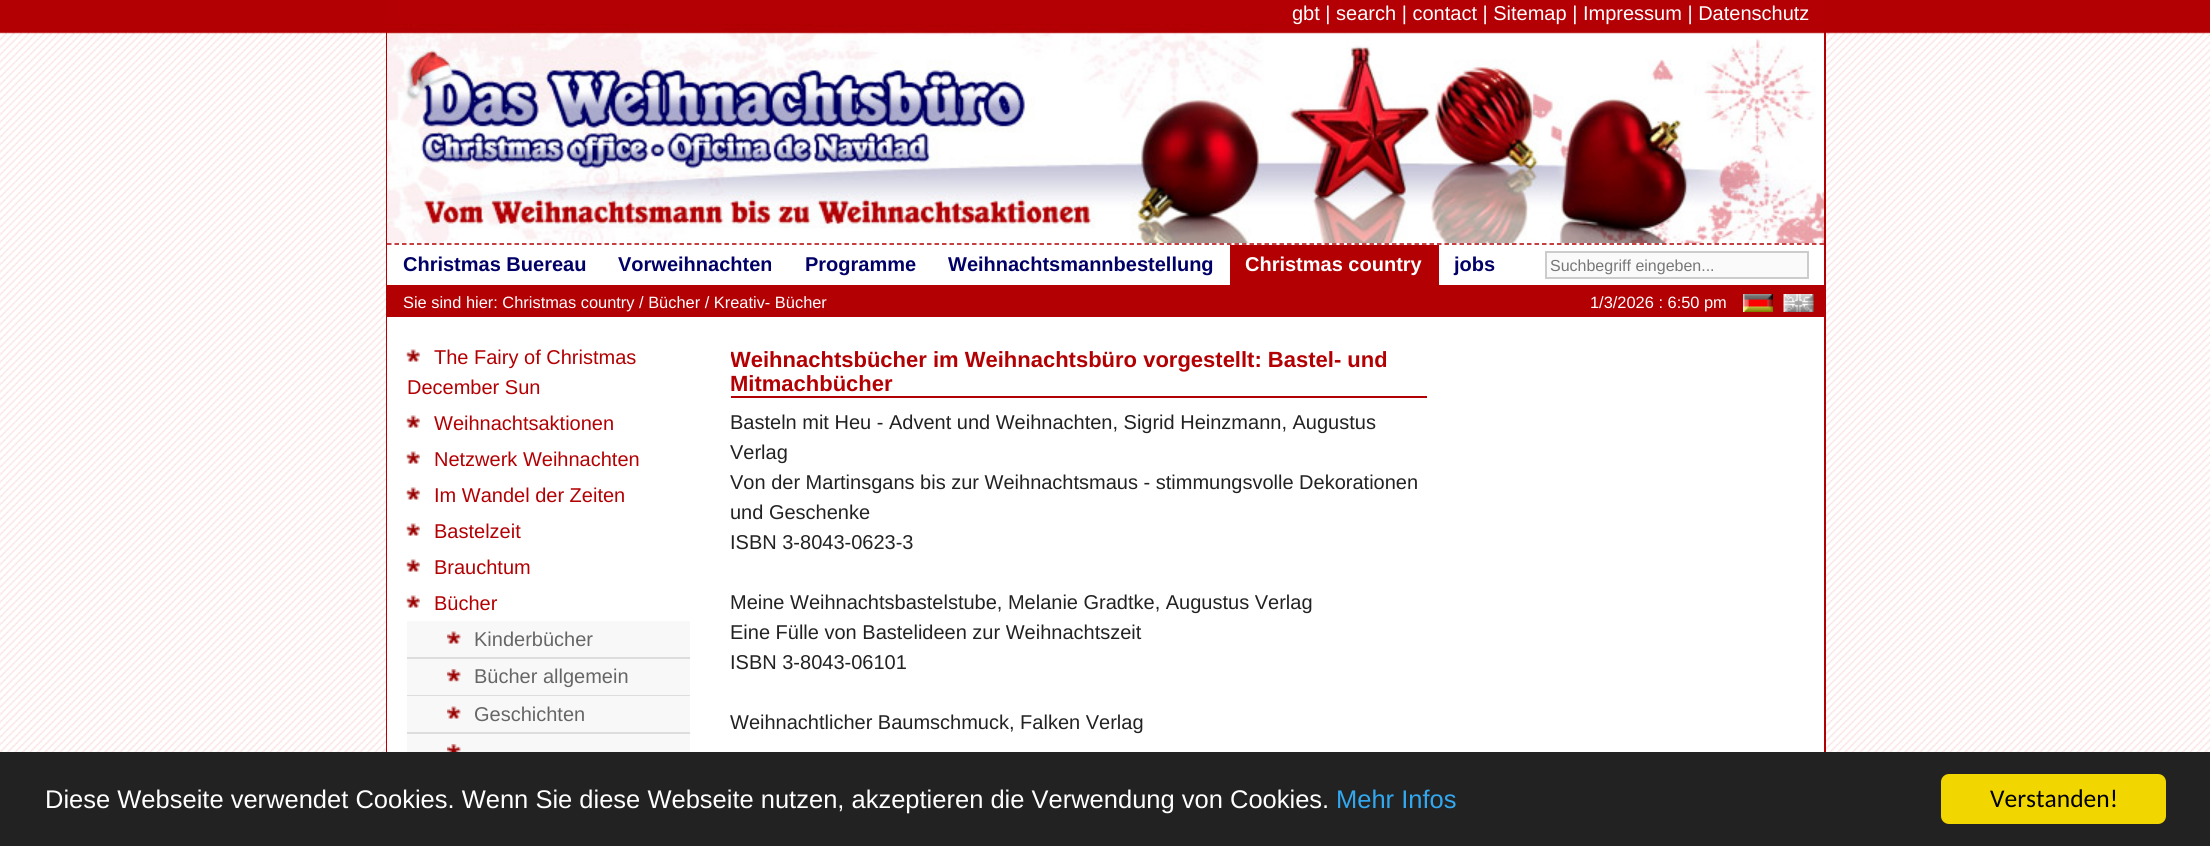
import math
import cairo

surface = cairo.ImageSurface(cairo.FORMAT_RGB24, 2210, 846)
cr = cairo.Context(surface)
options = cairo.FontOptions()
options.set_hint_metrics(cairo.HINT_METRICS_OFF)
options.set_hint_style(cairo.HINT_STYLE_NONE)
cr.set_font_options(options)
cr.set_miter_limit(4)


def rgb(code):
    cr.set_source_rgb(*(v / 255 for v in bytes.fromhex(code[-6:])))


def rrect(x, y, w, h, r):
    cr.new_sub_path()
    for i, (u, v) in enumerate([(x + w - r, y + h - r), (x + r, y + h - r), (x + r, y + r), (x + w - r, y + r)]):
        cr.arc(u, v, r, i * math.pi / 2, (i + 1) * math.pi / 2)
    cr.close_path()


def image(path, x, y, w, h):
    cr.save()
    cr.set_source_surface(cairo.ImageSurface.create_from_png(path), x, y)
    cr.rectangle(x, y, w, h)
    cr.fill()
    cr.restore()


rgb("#ffffff")
cr.paint()
image("img/1.png", 0, 0, 2210, 752)
for x, y, w, h, color in [
    (1824, 32, 2, 720, "#b30003"),
    (386, 32, 1, 720, "#b30003"),
    (387, 243, 1437, 42, "#ffffff"),
]:
    rgb(color)
    cr.rectangle(x, y, w, h)
    cr.fill()
cr.new_path()
cr.move_to(387, 244)
cr.line_to(1824, 244)
rgb("#b30003")
cr.set_line_width(1.5)
cr.set_dash([4.5, 3])
cr.stroke()
cr.rectangle(1230, 245, 209, 40)
cr.fill()
image("img/2.png", 387, 0, 1437, 243)
rgb("#fafafa")
cr.rectangle(1546, 252, 262, 26)
cr.fill_preserve()
rgb("#cccccc")
cr.set_line_width(2)
cr.set_dash([])
cr.stroke()
rgb("#ffffff")
cr.rectangle(387, 317, 1437, 435)
cr.fill()
rgb("#b30003")
cr.rectangle(387, 285, 1437, 32)
cr.fill()
image("img/3.png", 1743, 294, 30, 18)
image("img/4.png", 1783, 294, 31, 18)
image("img/5.png", 406, 349, 14, 13)
image("img/5.png", 406, 415, 14, 13)
image("img/5.png", 406, 451, 14, 13)
image("img/5.png", 406, 487, 14, 13)
image("img/5.png", 406, 523, 14, 13)
image("img/5.png", 406, 559, 14, 13)
image("img/5.png", 406, 595, 14, 13)
rgb("#f8f8f8")
cr.rectangle(407, 621, 283, 36)
cr.fill()
rgb("#dddddd")
cr.rectangle(407, 657, 283, 2)
cr.fill()
image("img/6.png", 447, 631, 14, 13)
rgb("#f8f8f8")
cr.rectangle(407, 659, 283, 36)
cr.fill()
rgb("#dddddd")
cr.rectangle(407, 695, 283, 1)
cr.fill()
image("img/7.png", 447, 669, 14, 13)
rgb("#f8f8f8")
cr.rectangle(407, 696, 283, 36)
cr.fill()
rgb("#dddddd")
cr.rectangle(407, 732, 283, 2)
cr.fill()
image("img/6.png", 447, 706, 14, 13)
rgb("#f8f8f8")
cr.rectangle(407, 734, 283, 18)
cr.fill()
image("img/8.png", 447, 744, 14, 8)
rgb("#b30003")
cr.rectangle(731, 396, 696, 2)
cr.fill()
rgb("#222222")
cr.rectangle(0, 752, 2210, 94)
cr.fill()
rgb("#f1d600")
rrect(1941, 774, 225, 50, 8)
cr.fill()
cr.select_font_face("Liberation Sans", cairo.FONT_SLANT_NORMAL, cairo.FONT_WEIGHT_BOLD)
cr.set_font_size(20)
rgb("#000066")
for x, y, s in [
    (403, 271, "Christmas Buereau"),
    (618, 271, "Vorweihnachten"),
    (805, 271, "Programme"),
    (948, 271, "Weihnachtsmannbestellung"),
]:
    cr.move_to(x, y)
    cr.show_text(s)
rgb("#ffffff")
cr.move_to(1245, 271)
cr.show_text("Christmas country")
rgb("#000066")
cr.move_to(1454, 271)
cr.show_text("jobs")
cr.select_font_face("Liberation Sans")
rgb("#ffffff")
cr.move_to(1292, 20)
cr.show_text("gbt | search | contact | Sitemap | Impressum | Datenschutz")
cr.set_font_size(16)
rgb("#777777")
cr.move_to(1550, 271)
cr.show_text("Suchbegriff eingeben...")
cr.set_font_size(16.4)
rgb("#ffffff")
cr.move_to(403, 308)
cr.show_text("Sie sind hier: Christmas country / Bücher / Kreativ- Bücher")
cr.move_to(1590, 308)
cr.show_text("1/3/2026 : 6:50 pm")
cr.set_font_size(20)
rgb("#b30003")
for x, y, s in [
    (434, 364, "The Fairy of Christmas"),
    (407, 394, "December Sun"),
    (434, 430, "Weihnachtsaktionen"),
    (434, 466, "Netzwerk Weihnachten"),
    (434, 502, "Im Wandel der Zeiten"),
    (434, 538, "Bastelzeit"),
    (434, 574, "Brauchtum"),
    (434, 610, "Bücher"),
]:
    cr.move_to(x, y)
    cr.show_text(s)
rgb("#666666")
for x, y, s in [
    (474, 646, "Kinderbücher"),
    (474, 683, "Bücher allgemein"),
    (474, 721, "Geschichten"),
]:
    cr.move_to(x, y)
    cr.show_text(s)
cr.save()
cr.rectangle(731, 317, 715, 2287)
cr.clip()
cr.select_font_face("Liberation Sans", cairo.FONT_SLANT_NORMAL, cairo.FONT_WEIGHT_BOLD)
cr.set_font_size(22)
rgb("#b30003")
cr.move_to(730, 367)
cr.show_text("Weihnachtsbücher im Weihnachtsbüro vorgestellt: Bastel- und")
cr.restore()
cr.select_font_face("Liberation Sans", cairo.FONT_SLANT_NORMAL, cairo.FONT_WEIGHT_BOLD)
cr.set_font_size(22)
rgb("#b30003")
cr.move_to(730, 391)
cr.show_text("Mitmachbücher")
cr.select_font_face("Liberation Sans")
cr.set_font_size(20)
rgb("#222222")
for x, y, s in [
    (730, 429, "Basteln mit Heu - Advent und Weihnachten, Sigrid Heinzmann, Augustus"),
    (730, 459, "Verlag"),
    (730, 489, "Von der Martinsgans bis zur Weihnachtsmaus - stimmungsvolle Dekorationen"),
    (730, 519, "und Geschenke"),
    (730, 549, "ISBN 3-8043-0623-3"),
    (730, 609, "Meine Weihnachtsbastelstube, Melanie Gradtke, Augustus Verlag"),
    (730, 639, "Eine Fülle von Bastelideen zur Weihnachtszeit"),
    (730, 669, "ISBN 3-8043-06101"),
    (730, 729, "Weihnachtlicher Baumschmuck, Falken Verlag"),
]:
    cr.move_to(x, y)
    cr.show_text(s)
cr.set_font_size(25.5)
rgb("#ffffff")
cr.move_to(45, 808)
cr.show_text("Diese Webseite verwendet Cookies. Wenn Sie diese Webseite nutzen, akzeptieren die Verwendung von Cookies.")
rgb("#31a8f0")
cr.move_to(1336, 808)
cr.show_text("Mehr Infos")
cr.select_font_face("Carlito")
rgb("#000000")
cr.move_to(1990, 807)
cr.show_text("Verstanden!")
surface.write_to_png("page.png")
